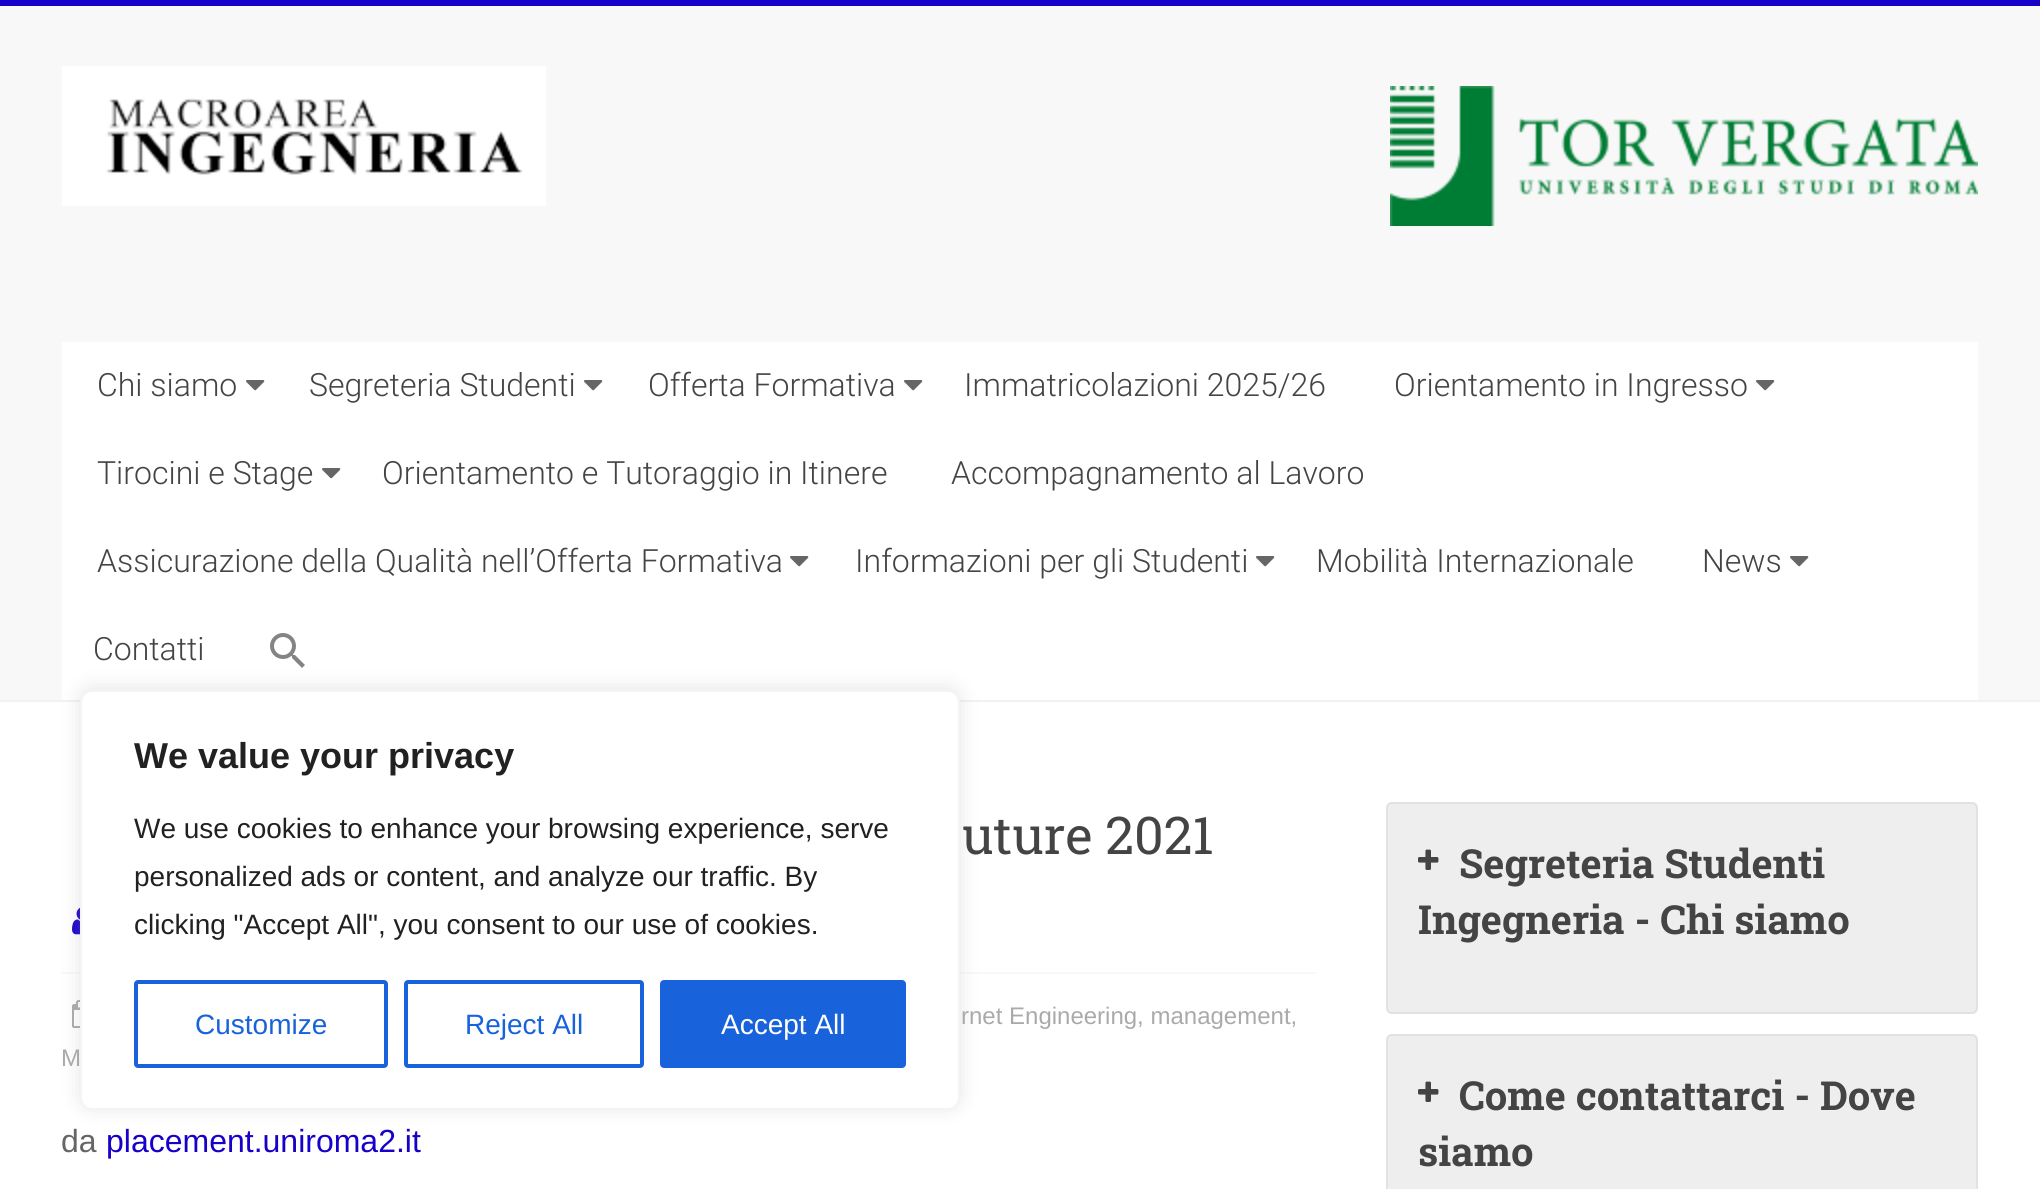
import math
import cairo

surface = cairo.ImageSurface(cairo.FORMAT_RGB24, 2040, 1189)
cr = cairo.Context(surface)
options = cairo.FontOptions()
options.set_hint_metrics(cairo.HINT_METRICS_OFF)
options.set_hint_style(cairo.HINT_STYLE_NONE)
cr.set_font_options(options)
cr.set_miter_limit(4)


def rgb(code):
    cr.set_source_rgb(*(v / 255 for v in bytes.fromhex(code[-6:])))


def rrect(x, y, w, h, r):
    cr.new_sub_path()
    for i, (u, v) in enumerate([(x + w - r, y + h - r), (x + r, y + h - r), (x + r, y + r), (x + w - r, y + r)]):
        cr.arc(u, v, r, i * math.pi / 2, (i + 1) * math.pi / 2)
    cr.close_path()


def soft_shadow(x, y, w, h, r, blur, alpha):
    cr.push_group_with_content(cairo.CONTENT_ALPHA)
    cr.set_operator(cairo.OPERATOR_SOURCE)
    for i in range(15, -16, -2):
        e = blur * i / 6
        if min(w, h) + 2 * e > 0:
            cr.set_source_rgba(0, 0, 0, alpha * math.erfc((i - 1) / 8.5) / 2)
            rrect(x - e, y - e, w + 2 * e, h + 2 * e, max(0, min(r + e + blur * .6, min(w, h) / 2 + e)))
            cr.fill()
    cr.mask(cr.pop_group())


def image(path, x, y, w, h):
    cr.save()
    cr.set_source_surface(cairo.ImageSurface.create_from_png(path), x, y)
    cr.rectangle(x, y, w, h)
    cr.fill()
    cr.restore()


rgb("#ffffff")
cr.paint()
for x, y, w, h, color in [
    (0, 0, 2040, 6, "#1700c9"),
    (0, 6, 2040, 694, "#f8f8f8"),
    (0, 700, 2040, 2, "#f2f2f2"),
]:
    rgb(color)
    cr.rectangle(x, y, w, h)
    cr.fill()
image("img/1.png", 62, 66, 484, 140)
image("img/2.png", 1390, 86, 588, 140)
rgb("#ffffff")
cr.rectangle(62, 342, 1916, 358)
cr.fill()
image("img/3.png", 246, 380, 19, 11)
image("img/3.png", 584, 380, 19, 11)
image("img/3.png", 904, 380, 19, 11)
image("img/3.png", 1756, 380, 19, 11)
image("img/3.png", 322, 468, 19, 11)
image("img/3.png", 790, 556, 19, 11)
image("img/3.png", 1256, 556, 19, 11)
image("img/3.png", 1790, 556, 19, 11)
image("img/4.png", 270, 633, 35, 35)
image("img/5.png", 72, 907, 8, 28)
rgb("#f8f8f8")
cr.rectangle(62, 972, 1254, 2)
cr.fill()
image("img/6.png", 72, 1000, 8, 28)
rgb("#eeeeee")
rrect(1387, 803, 590, 210, 5)
cr.fill_preserve()
rgb("#e2e2e2")
cr.stroke()
image("img/7.png", 1418, 849, 21, 21)
rgb("#eeeeee")
rrect(1387, 1035, 590, 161, 5)
cr.fill_preserve()
rgb("#e2e2e2")
cr.stroke()
image("img/7.png", 1418, 1081, 21, 21)
rgb("#acabab")
soft_shadow(80, 688, 880, 420, 12, 10, 0.3)
rgb("#ffffff")
rrect(81, 691, 878, 418, 11)
cr.fill_preserve()
rgb("#f4f4f4")
cr.stroke()
rrect(136, 982, 250, 84, 2)
rgb("#1863dc")
cr.set_line_width(4)
cr.stroke()
rrect(406, 982, 236, 84, 2)
cr.stroke()
rrect(662, 982, 242, 84, 2)
cr.fill_preserve()
cr.stroke()
cr.select_font_face("Roboto Light")
cr.set_font_size(32)
rgb("#444444")
for x, y, s in [
    (97, 396, "Chi siamo"),
    (309, 396, "Segreteria Studenti"),
    (648, 396, "Offerta Formativa"),
    (964, 396, "Immatricolazioni 2025/26"),
    (1394, 396, "Orientamento in Ingresso"),
    (97, 484, "Tirocini e Stage"),
    (382, 484, "Orientamento e Tutoraggio in Itinere"),
    (951, 484, "Accompagnamento al Lavoro"),
    (97, 572, "Assicurazione della Qualità nell’Offerta Formativa"),
    (855, 572, "Informazioni per gli Studenti"),
    (1316, 572, "Mobilità Internazionale"),
    (1702, 572, "News"),
    (93, 660, "Contatti"),
]:
    cr.move_to(x, y)
    cr.show_text(s)
cr.select_font_face("Roboto Slab")
cr.set_font_size(52)
cr.move_to(962, 854)
cr.show_text("uture 2021")
cr.select_font_face("Liberation Sans")
cr.set_font_size(24)
rgb("#aaaaaa")
cr.move_to(961, 1024)
cr.show_text("rnet Engineering, management,")
cr.move_to(61, 1066)
cr.show_text("M")
cr.set_font_size(32)
rgb("#666666")
cr.move_to(61, 1152)
cr.show_text("da")
rgb("#1700c9")
cr.move_to(106, 1152)
cr.show_text("placement.uniroma2.it")
cr.select_font_face("Roboto Slab", cairo.FONT_SLANT_NORMAL, cairo.FONT_WEIGHT_BOLD)
cr.set_font_size(40)
rgb("#444444")
for x, y, s in [
    (1459, 878, "Segreteria Studenti"),
    (1418, 934, "Ingegneria - Chi siamo"),
    (1459, 1110, "Come contattarci - Dove"),
    (1418, 1166, "siamo"),
]:
    cr.move_to(x, y)
    cr.show_text(s)
cr.select_font_face("Liberation Sans", cairo.FONT_SLANT_NORMAL, cairo.FONT_WEIGHT_BOLD)
cr.set_font_size(36)
rgb("#212121")
cr.move_to(134, 768)
cr.show_text("We value your privacy")
cr.select_font_face("Liberation Sans")
cr.set_font_size(28)
for x, y, s in [
    (134, 838, "We use cookies to enhance your browsing experience, serve"),
    (134, 886, "personalized ads or content, and analyze our traffic. By"),
    (134, 934, "clicking \"Accept All\", you consent to our use of cookies."),
]:
    cr.move_to(x, y)
    cr.show_text(s)
rgb("#1863dc")
cr.move_to(195, 1034)
cr.show_text("Customize")
cr.move_to(465, 1034)
cr.show_text("Reject All")
rgb("#ffffff")
cr.move_to(721, 1034)
cr.show_text("Accept All")
surface.write_to_png("page.png")
